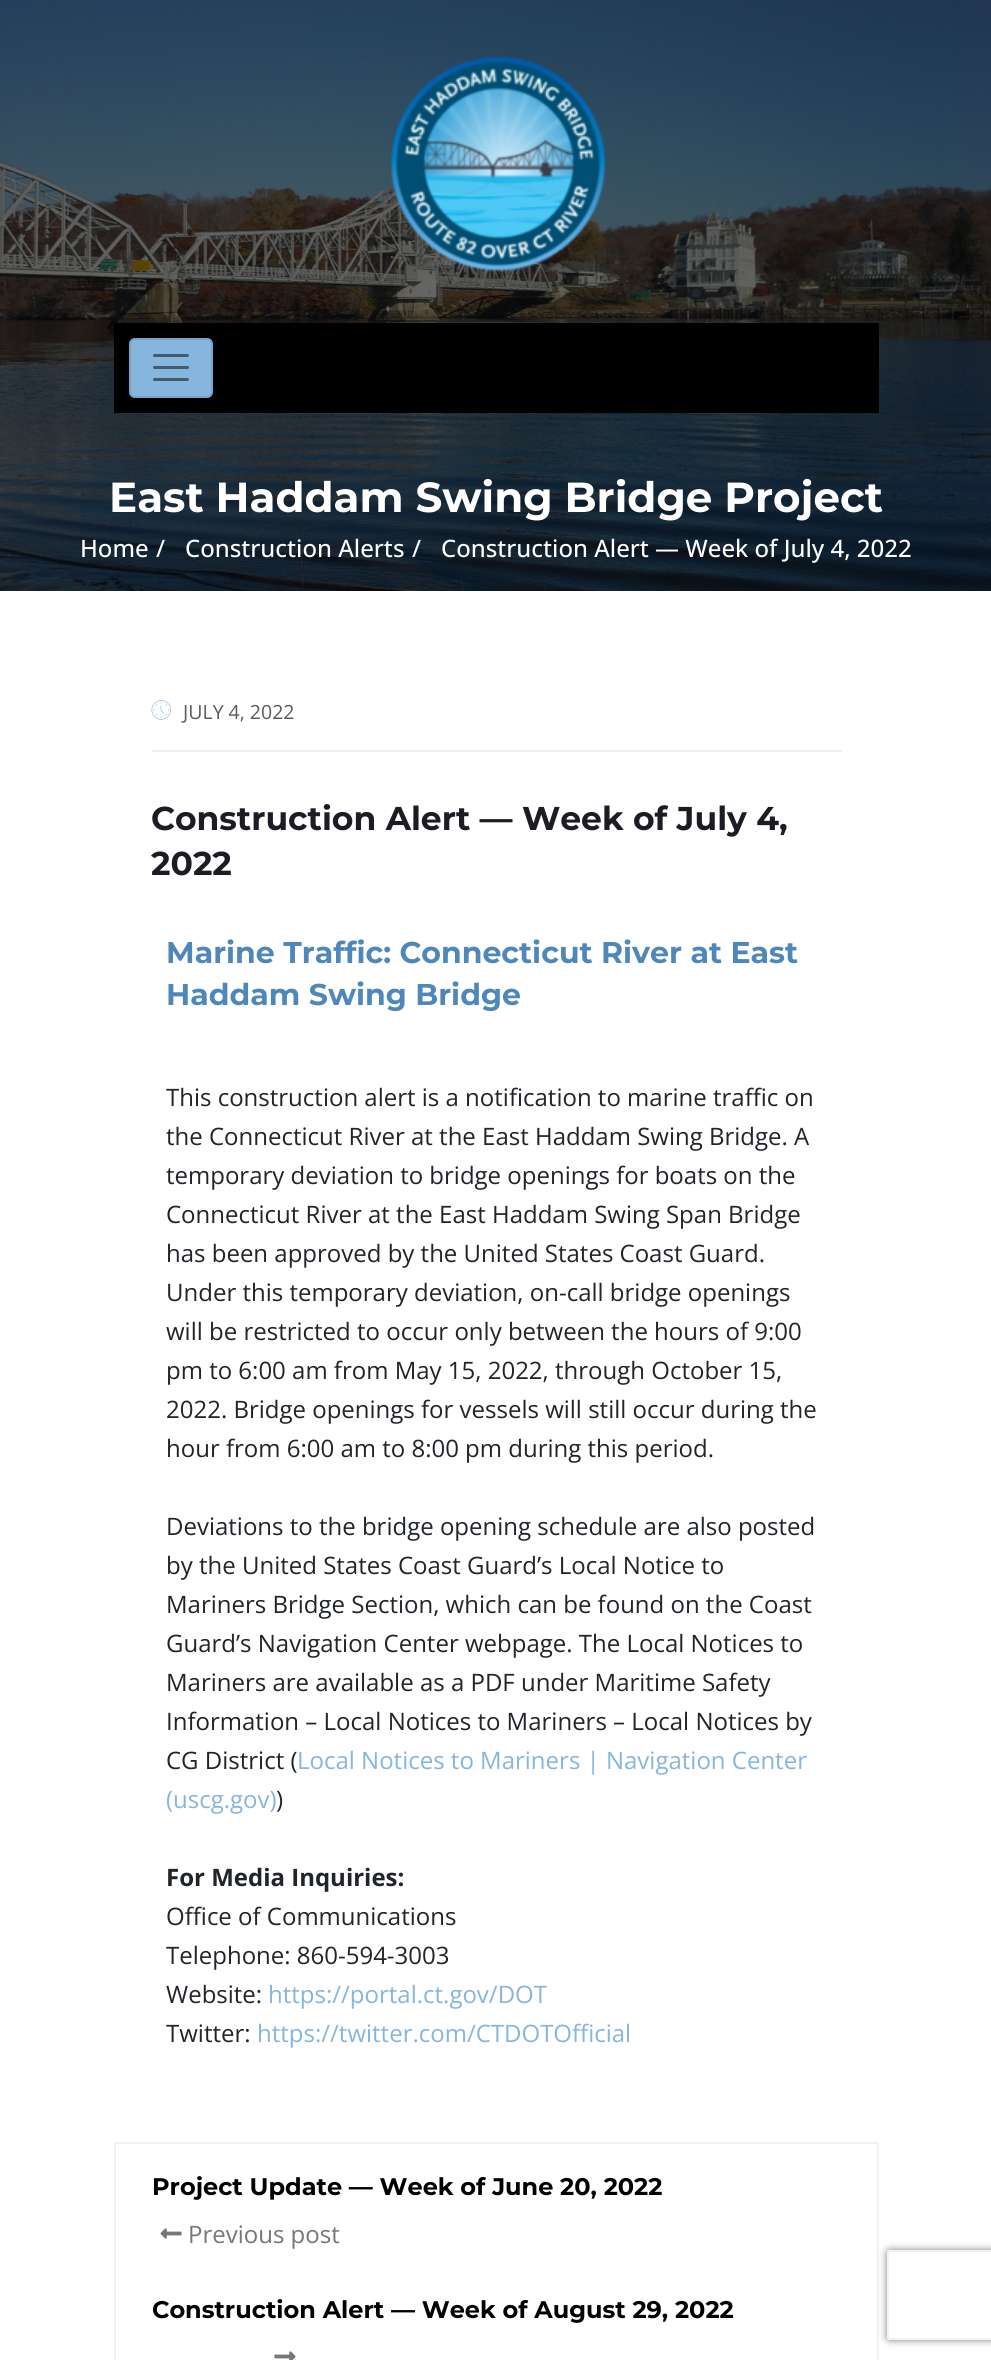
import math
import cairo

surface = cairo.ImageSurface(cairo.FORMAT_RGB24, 991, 2360)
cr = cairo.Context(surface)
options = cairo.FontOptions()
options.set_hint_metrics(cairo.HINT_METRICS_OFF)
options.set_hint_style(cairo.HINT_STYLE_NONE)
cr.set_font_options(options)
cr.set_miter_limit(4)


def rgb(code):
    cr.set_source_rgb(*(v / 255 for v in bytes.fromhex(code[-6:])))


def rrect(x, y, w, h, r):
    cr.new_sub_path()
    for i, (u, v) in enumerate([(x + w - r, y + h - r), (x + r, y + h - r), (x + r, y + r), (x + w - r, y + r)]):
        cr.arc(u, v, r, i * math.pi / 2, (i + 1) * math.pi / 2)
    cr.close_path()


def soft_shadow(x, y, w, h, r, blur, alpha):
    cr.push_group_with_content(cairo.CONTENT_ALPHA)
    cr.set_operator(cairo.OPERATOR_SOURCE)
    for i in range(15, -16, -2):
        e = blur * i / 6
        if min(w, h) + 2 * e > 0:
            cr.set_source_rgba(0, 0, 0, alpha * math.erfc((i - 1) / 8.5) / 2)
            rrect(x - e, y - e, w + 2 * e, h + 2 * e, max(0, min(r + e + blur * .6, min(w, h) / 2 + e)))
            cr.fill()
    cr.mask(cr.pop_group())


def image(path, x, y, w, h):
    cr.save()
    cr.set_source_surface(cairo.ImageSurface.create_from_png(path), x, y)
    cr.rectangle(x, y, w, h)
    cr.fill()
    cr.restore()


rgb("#ffffff")
cr.paint()
image("img/2.png", 0, 0, 991, 591)
image("img/1.png", 390, 55, 216, 217)
rgb("#000000")
cr.rectangle(114, 323, 765, 90)
cr.fill()
rgb("#86b5de")
rrect(129, 338, 84, 60, 6)
cr.fill()
rrect(130, 339, 82, 58, 5)
cr.set_source_rgba(0, 0, 0, 0.1)
cr.stroke()
cr.new_path()
cr.move_to(154.5, 355.5)
cr.line_to(187.5, 355.5)
cr.move_to(154.5, 367.5)
cr.line_to(187.5, 367.5)
cr.move_to(154.5, 379.5)
cr.line_to(187.5, 379.5)
rgb("#435b6f")
cr.set_line_width(3)
cr.set_line_cap(cairo.LINE_CAP_ROUND)
cr.stroke()
rgb("#eeeeee")
cr.rectangle(152, 750, 690, 2)
cr.fill()
image("img/3.png", 151, 700, 20, 20)
cr.rectangle(115, 2143, 763, 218)
rgb("#f1f1f1")
cr.set_line_width(2)
cr.set_line_cap(cairo.LINE_CAP_BUTT)
cr.stroke()
image("img/4.png", 160, 2228, 22, 11)
image("img/5.png", 274, 2351, 22, 9)
cr.save()
cr.set_fill_rule(cairo.FILL_RULE_EVEN_ODD)
cr.new_path()
cr.move_to(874, 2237)
cr.line_to(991, 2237)
cr.line_to(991, 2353)
cr.line_to(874, 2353)
cr.close_path()
cr.move_to(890, 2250)
cr.line_to(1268, 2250)
cr.curve_to(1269.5, 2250, 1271, 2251.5, 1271, 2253)
cr.line_to(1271, 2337)
cr.curve_to(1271, 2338.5, 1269.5, 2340, 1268, 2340)
cr.line_to(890, 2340)
cr.curve_to(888.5, 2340, 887, 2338.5, 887, 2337)
cr.line_to(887, 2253)
cr.curve_to(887, 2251.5, 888.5, 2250, 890, 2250)
cr.close_path()
cr.clip()
rgb("#808080")
soft_shadow(887, 2250, 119, 90, 3, 4, 1)
cr.restore()
cr.set_fill_rule(cairo.FILL_RULE_EVEN_ODD)
cr.new_path()
cr.move_to(890, 2250)
cr.curve_to(888, 2250, 887, 2251, 887, 2253)
cr.line_to(887, 2337)
cr.curve_to(887, 2339, 888, 2340, 890, 2340)
cr.line_to(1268, 2340)
cr.curve_to(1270, 2340, 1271, 2339, 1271, 2337)
cr.line_to(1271, 2253)
cr.curve_to(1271, 2251, 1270, 2250, 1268, 2250)
cr.close_path()
cr.move_to(889, 2252)
cr.line_to(889, 2338)
cr.line_to(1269, 2338)
cr.line_to(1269, 2252)
cr.close_path()
cr.fill()
cr.select_font_face("Montserrat", cairo.FONT_SLANT_NORMAL, cairo.FONT_WEIGHT_BOLD)
cr.set_font_size(42)
rgb("#ffffff")
cr.move_to(109, 512)
cr.show_text("East Haddam Swing Bridge Project")
cr.select_font_face("Open Sans Medium")
cr.set_font_size(24)
for x, y, s in [
    (80, 557, "Home"),
    (156, 557, "/"),
    (185, 557, "Construction Alerts"),
    (412, 557, "/"),
    (441, 557, "Construction Alert — Week of July 4, 2022"),
]:
    cr.move_to(x, y)
    cr.show_text(s)
cr.select_font_face("Open Sans")
cr.set_font_size(19.5)
rgb("#5a5a5a")
cr.move_to(183, 719)
cr.show_text("JULY 4, 2022")
cr.select_font_face("Montserrat", cairo.FONT_SLANT_NORMAL, cairo.FONT_WEIGHT_BOLD)
cr.set_font_size(33)
rgb("#1c1c24")
cr.move_to(151, 830)
cr.show_text("Construction Alert — Week of July 4,")
cr.move_to(151, 875)
cr.show_text("2022")
cr.set_font_size(30)
rgb("#4e87ba")
cr.move_to(166, 963)
cr.show_text("Marine Traffic: Connecticut River at East")
cr.move_to(166, 1005)
cr.show_text("Haddam Swing Bridge")
cr.select_font_face("Open Sans")
cr.set_font_size(24)
rgb("#212529")
for x, y, s in [
    (166, 1106, "This construction alert is a notification to marine traffic on"),
    (166, 1145, "the Connecticut River at the East Haddam Swing Bridge. A"),
    (166, 1184, "temporary deviation to bridge openings for boats on the"),
    (166, 1223, "Connecticut River at the East Haddam Swing Span Bridge"),
    (166, 1262, "has been approved by the United States Coast Guard."),
    (166, 1301, "Under this temporary deviation, on-call bridge openings"),
    (166, 1340, "will be restricted to occur only between the hours of 9:00"),
    (166, 1379, "pm to 6:00 am from May 15, 2022, through October 15,"),
    (166, 1418, "2022. Bridge openings for vessels will still occur during the"),
    (166, 1457, "hour from 6:00 am to 8:00 pm during this period."),
    (166, 1535, "Deviations to the bridge opening schedule are also posted"),
    (166, 1574, "by the United States Coast Guard’s Local Notice to"),
    (166, 1613, "Mariners Bridge Section, which can be found on the Coast"),
    (166, 1652, "Guard’s Navigation Center webpage. The Local Notices to"),
    (166, 1691, "Mariners are available as a PDF under Maritime Safety"),
    (166, 1730, "Information – Local Notices to Mariners – Local Notices by"),
    (166, 1769, "CG District ("),
]:
    cr.move_to(x, y)
    cr.show_text(s)
rgb("#86b5de")
cr.move_to(297, 1769)
cr.show_text("Local Notices to Mariners | Navigation Center")
cr.move_to(166, 1808)
cr.show_text("(uscg.gov)")
rgb("#212529")
cr.move_to(276, 1808)
cr.show_text(")")
cr.select_font_face("Open Sans", cairo.FONT_SLANT_NORMAL, cairo.FONT_WEIGHT_BOLD)
cr.move_to(166, 1886)
cr.show_text("For Media Inquiries:")
cr.select_font_face("Open Sans")
for x, y, s in [
    (166, 1925, "Office of Communications"),
    (166, 1964, "Telephone: 860-594-3003"),
    (166, 2003, "Website:"),
]:
    cr.move_to(x, y)
    cr.show_text(s)
rgb("#86b5de")
cr.move_to(268, 2003)
cr.show_text("https://portal.ct.gov/DOT")
rgb("#212529")
cr.move_to(166, 2042)
cr.show_text("Twitter:")
rgb("#86b5de")
cr.move_to(257, 2042)
cr.show_text("https://twitter.com/CTDOTOfficial")
cr.select_font_face("Montserrat", cairo.FONT_SLANT_NORMAL, cairo.FONT_WEIGHT_BOLD)
rgb("#000000")
cr.move_to(152, 2195)
cr.show_text("Project Update — Week of June 20, 2022")
cr.select_font_face("Open Sans")
rgb("#777777")
cr.move_to(188, 2243)
cr.show_text("Previous post")
cr.select_font_face("Montserrat", cairo.FONT_SLANT_NORMAL, cairo.FONT_WEIGHT_BOLD)
rgb("#000000")
cr.move_to(152, 2318)
cr.show_text("Construction Alert — Week of August 29, 2022")
surface.write_to_png("page.png")
